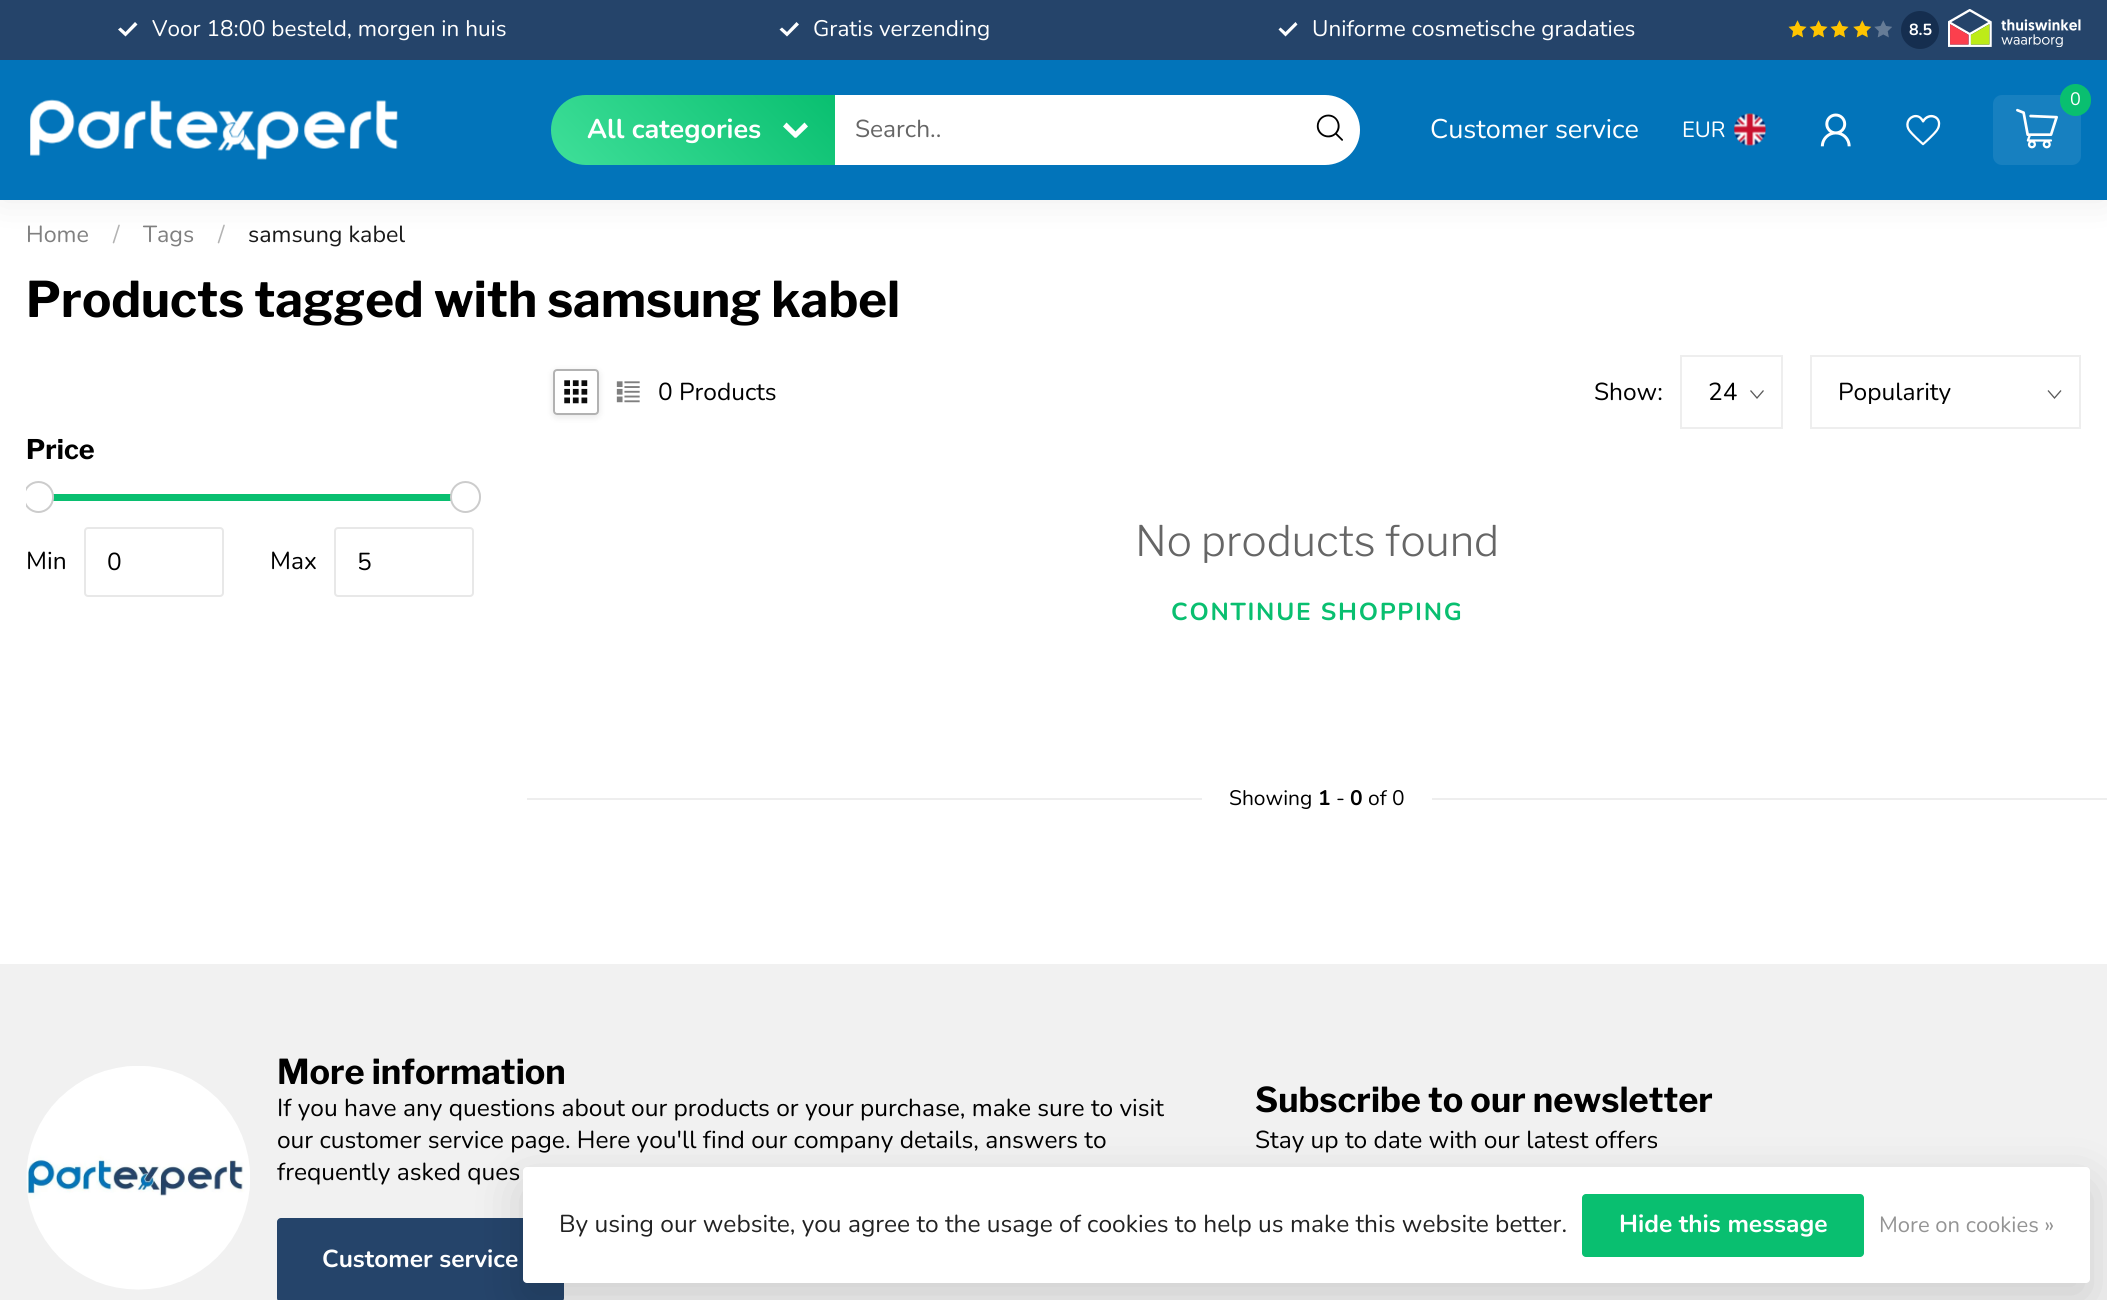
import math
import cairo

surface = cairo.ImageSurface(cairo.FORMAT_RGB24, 2107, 1300)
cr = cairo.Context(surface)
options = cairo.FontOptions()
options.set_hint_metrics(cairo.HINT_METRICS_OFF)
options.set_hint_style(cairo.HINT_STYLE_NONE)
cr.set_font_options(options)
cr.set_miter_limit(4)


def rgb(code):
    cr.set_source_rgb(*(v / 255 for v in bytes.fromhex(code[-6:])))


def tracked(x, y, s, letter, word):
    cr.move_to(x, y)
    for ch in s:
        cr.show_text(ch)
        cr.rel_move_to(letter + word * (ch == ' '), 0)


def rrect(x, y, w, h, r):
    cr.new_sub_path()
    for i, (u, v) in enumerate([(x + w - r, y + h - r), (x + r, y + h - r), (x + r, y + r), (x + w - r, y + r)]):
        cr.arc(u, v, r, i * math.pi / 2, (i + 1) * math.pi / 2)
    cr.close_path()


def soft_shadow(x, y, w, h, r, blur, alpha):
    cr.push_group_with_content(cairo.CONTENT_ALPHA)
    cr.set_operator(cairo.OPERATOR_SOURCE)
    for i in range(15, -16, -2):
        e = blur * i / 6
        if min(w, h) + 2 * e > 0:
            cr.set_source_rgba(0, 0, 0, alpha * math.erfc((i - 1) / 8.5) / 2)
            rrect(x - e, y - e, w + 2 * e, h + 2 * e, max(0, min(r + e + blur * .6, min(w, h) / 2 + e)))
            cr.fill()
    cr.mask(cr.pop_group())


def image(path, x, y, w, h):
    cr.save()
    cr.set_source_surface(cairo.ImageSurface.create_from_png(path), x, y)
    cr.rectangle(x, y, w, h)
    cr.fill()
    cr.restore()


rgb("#ffffff")
cr.paint()
rgb("#000000")
soft_shadow(0, 0, 2107, 200, 0, 19, 0.08)
rgb("#0274ba")
cr.rectangle(0, 60, 2107, 140)
cr.fill()
rgb("#25446a")
cr.rectangle(0, 0, 2107, 60)
cr.fill()
rgb("#ffffff")
cr.new_path()
cr.move_to(125.5, 36.5)
cr.line_to(118, 29.5)
cr.line_to(120.5, 27.5)
cr.line_to(125.5, 32)
cr.line_to(135, 22)
cr.line_to(137.5, 24.5)
cr.close_path()
cr.fill()
cr.new_path()
cr.move_to(787, 36.5)
cr.line_to(779.5, 29.5)
cr.line_to(782, 27.5)
cr.line_to(787, 32)
cr.line_to(796.5, 22)
cr.line_to(799, 24.5)
cr.close_path()
cr.fill()
cr.new_path()
cr.move_to(1285.5, 36.5)
cr.line_to(1278.5, 29.5)
cr.line_to(1280.5, 27.5)
cr.line_to(1285.5, 32)
cr.line_to(1295.5, 22)
cr.line_to(1297.5, 24.5)
cr.close_path()
cr.fill()
image("img/1.png", 1788, 20, 19, 18)
image("img/1.png", 1809, 20, 19, 18)
image("img/1.png", 1830, 20, 19, 18)
image("img/2.png", 1853, 20, 19, 18)
image("img/3.png", 1874, 20, 18, 18)
rgb("#152e4f")
cr.arc(1920, 30, 19, 0, 2 * math.pi)
cr.fill()
image("img/4.png", 1948, 9, 133, 38)
image("img/5.png", 30, 99, 368, 61)
gradient = cairo.LinearGradient(605, 218, 781, 41)
gradient.add_color_stop_rgba(0, 0.247, 0.875, 0.6, 1)
gradient.add_color_stop_rgba(1, 0.035, 0.749, 0.439, 1)
cr.set_source(gradient)
cr.new_path()
cr.move_to(586, 95)
cr.line_to(835, 95)
cr.line_to(835, 165)
cr.line_to(586, 165)
cr.curve_to(566.5, 165, 551, 149.5, 551, 130)
cr.curve_to(551, 110.5, 566.5, 95, 586, 95)
cr.close_path()
cr.fill()
rgb("#ffffff")
cr.new_path()
cr.move_to(786.5, 122.5)
cr.line_to(798.5, 134.5)
cr.line_to(795, 138)
cr.line_to(783, 126.5)
cr.close_path()
cr.fill()
cr.new_path()
cr.move_to(792.5, 134.5)
cr.line_to(804.5, 122.5)
cr.line_to(808, 126.5)
cr.line_to(796, 138)
cr.close_path()
cr.fill()
cr.new_path()
cr.move_to(835, 95)
cr.line_to(1325, 95)
cr.curve_to(1344.5, 95, 1360, 110.5, 1360, 130)
cr.curve_to(1360, 149.5, 1344.5, 165, 1325, 165)
cr.line_to(835, 165)
cr.close_path()
cr.fill()
image("img/6.png", 1316, 114, 27, 27)
rgb("#1780c0")
rrect(1993, 95, 88, 70, 9)
cr.fill()
rgb("#09bf70")
rrect(2060, 84, 31, 32, 15.5)
cr.fill()
image("img/7.png", 2016, 108, 42, 41)
image("img/8.png", 1734, 113, 32, 33)
image("img/9.png", 1820, 113, 31, 34)
image("img/10.png", 1906, 114, 35, 32)
cr.rectangle(53, 494, 398, 7)
cr.fill()
cr.save()
cr.rectangle(26, 382, 475, 241)
cr.clip()
rgb("#ffffff")
rrect(24, 482, 29, 30, 14.5)
cr.fill_preserve()
rgb("#cccccc")
cr.stroke()
cr.restore()
rgb("#ffffff")
rrect(451, 482, 29, 30, 14.5)
cr.fill_preserve()
rgb("#cccccc")
cr.stroke()
rrect(85, 528, 138, 68, 3)
rgb("#e8e8e8")
cr.stroke()
rrect(335, 528, 138, 68, 3)
cr.stroke()
cr.save()
cr.set_fill_rule(cairo.FILL_RULE_EVEN_ODD)
cr.new_path()
cr.move_to(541, 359)
cr.line_to(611, 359)
cr.line_to(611, 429)
cr.line_to(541, 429)
cr.close_path()
cr.move_to(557, 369)
cr.line_to(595, 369)
cr.curve_to(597, 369, 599, 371, 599, 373)
cr.line_to(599, 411)
cr.curve_to(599, 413, 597, 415, 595, 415)
cr.line_to(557, 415)
cr.curve_to(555, 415, 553, 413, 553, 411)
cr.line_to(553, 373)
cr.curve_to(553, 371, 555, 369, 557, 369)
cr.close_path()
cr.clip()
rgb("#000000")
soft_shadow(553, 371, 46, 46, 4, 3.5, 0.1)
cr.restore()
rrect(554, 370, 44, 44, 3)
rgb("#b2b2b2")
cr.stroke()
image("img/11.png", 564, 380, 24, 24)
image("img/12.png", 616, 381, 24, 22)
cr.new_path()
cr.move_to(1763.5, 390.5)
cr.line_to(1757, 398)
cr.line_to(1750.5, 390.5)
rgb("#595959")
cr.set_line_width(1.3)
cr.stroke()
cr.rectangle(1681, 356, 101, 72)
rgb("#eeeeee")
cr.set_line_width(2)
cr.stroke()
cr.new_path()
cr.move_to(2061, 390.5)
cr.line_to(2054.5, 398)
cr.line_to(2048, 390.5)
rgb("#595959")
cr.set_line_width(1.3)
cr.stroke()
cr.rectangle(1811, 356, 269, 72)
rgb("#eeeeee")
cr.set_line_width(2)
cr.stroke()
for x, y, w, h, color in [
    (527, 798, 1580, 2, "#eeeeee"),
    (1202, 798, 230, 2, "#ffffff"),
    (0, 964, 2107, 336, "#f1f1f1"),
]:
    rgb(color)
    cr.rectangle(x, y, w, h)
    cr.fill()
image("img/13.png", 26, 1066, 224, 224)
rgb("#25446a")
rrect(277, 1218, 287, 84, 4)
cr.fill()
rgb("#000000")
soft_shadow(523, 1185, 1567, 115, 4, 26, 0.15)
rgb("#ffffff")
rrect(523, 1167, 1567, 116, 4)
cr.fill()
rgb("#09bf70")
rrect(1582, 1194, 282, 63, 4)
cr.fill()
cr.select_font_face("Nunito")
cr.set_font_size(22.5)
rgb("#ffffff")
for x, y, s in [
    (152, 36, "Voor 18:00 besteld, morgen in huis"),
    (813, 36, "Gratis verzending"),
    (1312, 36, "Uniforme cosmetische gradaties"),
]:
    cr.move_to(x, y)
    cr.show_text(s)
cr.select_font_face("Nunito", cairo.FONT_SLANT_NORMAL, cairo.FONT_WEIGHT_BOLD)
cr.set_font_size(16)
cr.move_to(1909, 35)
cr.show_text("8.5")
cr.set_font_size(27)
cr.move_to(587, 138)
cr.show_text("All categories")
cr.select_font_face("Nunito")
cr.set_font_size(24.5)
rgb("#666666")
cr.move_to(855, 137)
cr.show_text("Search..")
cr.set_font_size(18)
rgb("#ffffff")
cr.move_to(2070, 105)
cr.show_text("0")
cr.set_font_size(27)
cr.move_to(1430, 138)
cr.show_text("Customer service")
cr.set_font_size(22)
cr.move_to(1682, 137)
cr.show_text("EUR")
cr.set_font_size(23.25)
rgb("#808080")
cr.move_to(26, 242)
cr.show_text("Home")
rgb("#b3b3b3")
cr.move_to(113, 242)
cr.show_text("/")
rgb("#808080")
cr.move_to(143, 242)
cr.show_text("Tags")
rgb("#b3b3b3")
cr.move_to(218, 242)
cr.show_text("/")
rgb("#1a1a1a")
cr.move_to(248, 242)
cr.show_text("samsung kabel")
cr.select_font_face("Libre Franklin", cairo.FONT_SLANT_NORMAL, cairo.FONT_WEIGHT_BOLD)
cr.set_font_size(49)
rgb("#000000")
cr.move_to(26, 317)
cr.show_text("Products tagged with samsung kabel")
cr.set_font_size(27)
cr.move_to(26, 459)
cr.show_text("Price")
cr.select_font_face("Nunito")
cr.set_font_size(24.5)
for x, y, s in [
    (26, 569, "Min"),
    (107, 570, "0"),
    (270, 569, "Max"),
    (357, 570, "5"),
    (658, 400, "0 Products"),
    (1594, 400, "Show:"),
    (1708, 400, "24"),
]:
    cr.move_to(x, y)
    cr.show_text(s)
cr.save()
cr.rectangle(1838, 380, 197, 24)
cr.clip()
cr.move_to(1838, 400)
cr.show_text("Popularity")
cr.restore()
cr.select_font_face("Libre Franklin Light")
cr.set_font_size(42)
rgb("#666666")
cr.move_to(1135, 556)
cr.show_text("No products found")
cr.select_font_face("Nunito", cairo.FONT_SLANT_NORMAL, cairo.FONT_WEIGHT_BOLD)
cr.set_font_size(24.5)
rgb("#09bf70")
tracked(1171, 620, "CONTINUE SHOPPING", 1.75, 0)
cr.select_font_face("Nunito")
cr.set_font_size(21)
rgb("#000000")
cr.move_to(1229, 805)
cr.show_text("Showing")
cr.select_font_face("Nunito", cairo.FONT_SLANT_NORMAL, cairo.FONT_WEIGHT_BOLD)
cr.move_to(1318, 805)
cr.show_text("1")
cr.move_to(1350, 805)
cr.show_text("0")
cr.select_font_face("Nunito")
cr.move_to(1368, 805)
cr.show_text("of 0")
cr.move_to(1336, 805)
cr.show_text("-")
cr.select_font_face("Libre Franklin", cairo.FONT_SLANT_NORMAL, cairo.FONT_WEIGHT_BOLD)
cr.set_font_size(34.25)
cr.move_to(277, 1084)
cr.show_text("More information")
cr.select_font_face("Nunito")
cr.set_font_size(24.5)
for x, y, s in [
    (277, 1116, "If you have any questions about our products or your purchase, make sure to visit"),
    (277, 1148, "our customer service page. Here you'll find our company details, answers to"),
    (277, 1180, "frequently asked ques"),
]:
    cr.move_to(x, y)
    cr.show_text(s)
cr.select_font_face("Nunito", cairo.FONT_SLANT_NORMAL, cairo.FONT_WEIGHT_BOLD)
rgb("#ffffff")
cr.move_to(322, 1267)
cr.show_text("Customer service")
cr.select_font_face("Libre Franklin", cairo.FONT_SLANT_NORMAL, cairo.FONT_WEIGHT_BOLD)
cr.set_font_size(34.25)
rgb("#000000")
cr.move_to(1255, 1112)
cr.show_text("Subscribe to our newsletter")
cr.select_font_face("Nunito")
cr.set_font_size(24.5)
cr.move_to(1255, 1148)
cr.show_text("Stay up to date with our latest offers")
rgb("#222222")
cr.move_to(559, 1232)
cr.show_text("By using our website, you agree to the usage of cookies to help us make this website better.")
cr.select_font_face("Nunito", cairo.FONT_SLANT_NORMAL, cairo.FONT_WEIGHT_BOLD)
rgb("#ffffff")
cr.move_to(1619, 1232)
cr.show_text("Hide this message")
cr.select_font_face("Nunito")
cr.set_font_size(22)
rgb("#949494")
cr.move_to(1879, 1232)
cr.show_text("More on cookies »")
surface.write_to_png("page.png")
